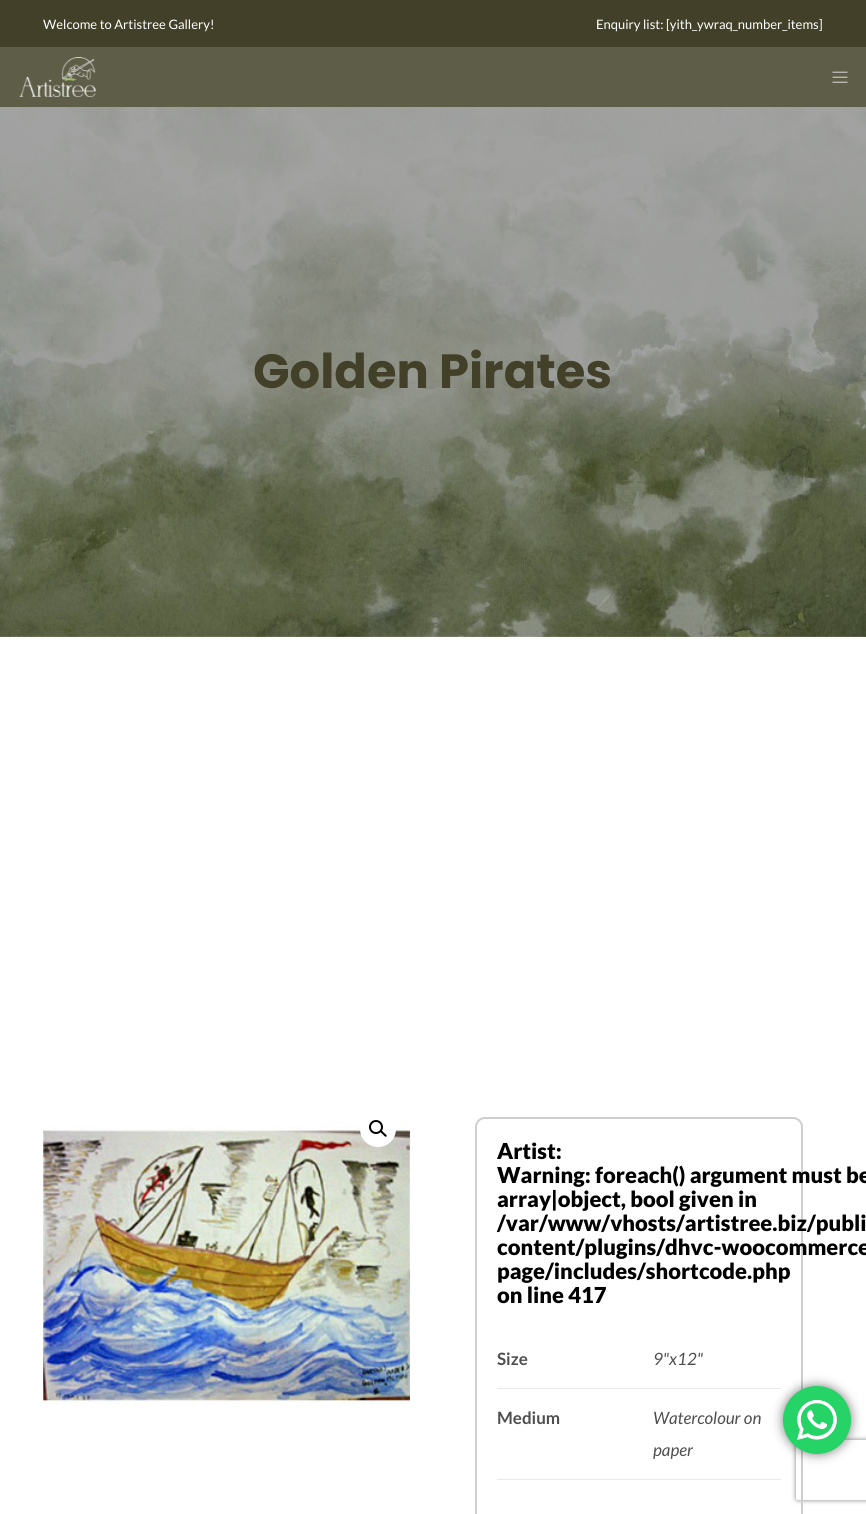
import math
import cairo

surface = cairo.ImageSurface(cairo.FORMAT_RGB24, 866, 1514)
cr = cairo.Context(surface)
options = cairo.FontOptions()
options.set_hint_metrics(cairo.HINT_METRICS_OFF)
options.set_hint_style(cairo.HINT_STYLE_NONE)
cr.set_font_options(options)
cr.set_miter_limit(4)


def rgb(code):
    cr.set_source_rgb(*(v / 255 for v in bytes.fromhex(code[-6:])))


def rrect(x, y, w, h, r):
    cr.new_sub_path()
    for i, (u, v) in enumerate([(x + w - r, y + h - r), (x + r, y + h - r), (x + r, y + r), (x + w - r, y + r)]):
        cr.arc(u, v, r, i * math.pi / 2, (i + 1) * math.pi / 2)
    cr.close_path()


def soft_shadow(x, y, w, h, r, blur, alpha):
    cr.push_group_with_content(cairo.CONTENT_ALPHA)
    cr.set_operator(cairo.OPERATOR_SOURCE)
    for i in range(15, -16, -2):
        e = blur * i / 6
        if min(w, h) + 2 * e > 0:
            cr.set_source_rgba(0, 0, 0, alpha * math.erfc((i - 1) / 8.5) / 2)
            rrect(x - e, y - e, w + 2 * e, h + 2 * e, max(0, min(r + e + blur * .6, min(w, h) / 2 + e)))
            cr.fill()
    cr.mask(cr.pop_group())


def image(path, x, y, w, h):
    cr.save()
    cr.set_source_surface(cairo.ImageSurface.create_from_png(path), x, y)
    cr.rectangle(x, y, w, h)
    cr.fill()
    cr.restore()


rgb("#ffffff")
cr.paint()
rgb("#424028")
cr.rectangle(0, 0, 866, 47)
cr.fill()
rgb("#5e5d48")
cr.rectangle(0, 47, 866, 60)
cr.fill()
image("img/1.png", 19, 57, 77, 40)
image("img/2.png", 832, 71, 16, 12)
image("img/3.png", 0, 107, 866, 530)
image("img/4.png", 43, 1126, 367, 278)
rgb("#ffffff")
cr.arc(378, 1129, 18, 0, 2 * math.pi)
cr.fill()
cr.arc(376, 1127, 6, 0, 2 * math.pi)
rgb("#000000")
cr.stroke()
cr.new_path()
cr.move_to(380.5, 1131)
cr.curve_to(382, 1129.5, 383.5, 1132.5, 384, 1133)
cr.curve_to(385, 1133.5, 387.5, 1135.5, 386.5, 1136.5)
cr.curve_to(385, 1137.5, 383.5, 1135, 383, 1134.5)
cr.curve_to(382, 1133.5, 379.5, 1132, 380.5, 1131)
cr.close_path()
cr.fill()
cr.save()
cr.set_fill_rule(cairo.FILL_RULE_EVEN_ODD)
cr.new_path()
cr.move_to(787, 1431)
cr.line_to(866, 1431)
cr.line_to(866, 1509)
cr.line_to(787, 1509)
cr.close_path()
cr.move_to(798, 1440)
cr.line_to(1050, 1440)
cr.curve_to(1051, 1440, 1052, 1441, 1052, 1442)
cr.line_to(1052, 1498)
cr.curve_to(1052, 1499, 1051, 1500, 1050, 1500)
cr.line_to(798, 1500)
cr.curve_to(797, 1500, 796, 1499, 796, 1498)
cr.line_to(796, 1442)
cr.curve_to(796, 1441, 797, 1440, 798, 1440)
cr.close_path()
cr.clip()
rgb("#808080")
soft_shadow(796, 1440, 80, 60, 2, 2.5, 1)
cr.restore()
rrect(476, 1118, 326, 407, 9)
rgb("#cecece")
cr.stroke()
rgb("#e9e9e9")
cr.rectangle(497, 1388, 284, 1)
cr.fill()
cr.rectangle(497, 1479, 284, 1)
cr.fill()
rgb("#000000")
soft_shadow(783, 1386, 68, 68, 34, 5.5, 0.5)
rgb("#25d366")
cr.arc(817, 1420, 34, 0, 2 * math.pi)
cr.fill()
image("img/5.png", 797, 1400, 40, 40)
cr.select_font_face("Lato")
cr.set_font_size(13)
rgb("#ffffff")
cr.move_to(43, 29)
cr.show_text("Welcome to Artistree Gallery!")
cr.move_to(596, 29)
cr.show_text("Enquiry list: [yith_ywraq_number_items]")
cr.select_font_face("Poppins", cairo.FONT_SLANT_NORMAL, cairo.FONT_WEIGHT_BOLD)
cr.set_font_size(48)
rgb("#424028")
cr.move_to(253, 388)
cr.show_text("Golden Pirates")
cr.select_font_face("Lato Black")
cr.set_font_size(22)
rgb("#000000")
for x, y, s in [
    (497, 1159, "Artist:"),
    (497, 1183, "Warning: foreach() argument must be"),
    (497, 1207, "array|object, bool given in"),
    (497, 1231, "/var/www/vhosts/artistree.biz/publi"),
    (497, 1255, "content/plugins/dhvc-woocommerce"),
    (497, 1279, "page/includes/shortcode.php"),
    (497, 1303, "on line 417"),
]:
    cr.move_to(x, y)
    cr.show_text(s)
cr.select_font_face("Lato", cairo.FONT_SLANT_NORMAL, cairo.FONT_WEIGHT_BOLD)
cr.set_font_size(17)
rgb("#4f4f4f")
cr.move_to(497, 1365)
cr.show_text("Size")
cr.select_font_face("Lato", cairo.FONT_SLANT_ITALIC)
cr.move_to(653, 1365)
cr.show_text("9\"x12\"")
cr.select_font_face("Lato", cairo.FONT_SLANT_NORMAL, cairo.FONT_WEIGHT_BOLD)
cr.move_to(497, 1424)
cr.show_text("Medium")
cr.select_font_face("Lato", cairo.FONT_SLANT_ITALIC)
cr.move_to(653, 1424)
cr.show_text("Watercolour on")
cr.move_to(653, 1456)
cr.show_text("paper")
surface.write_to_png("page.png")
